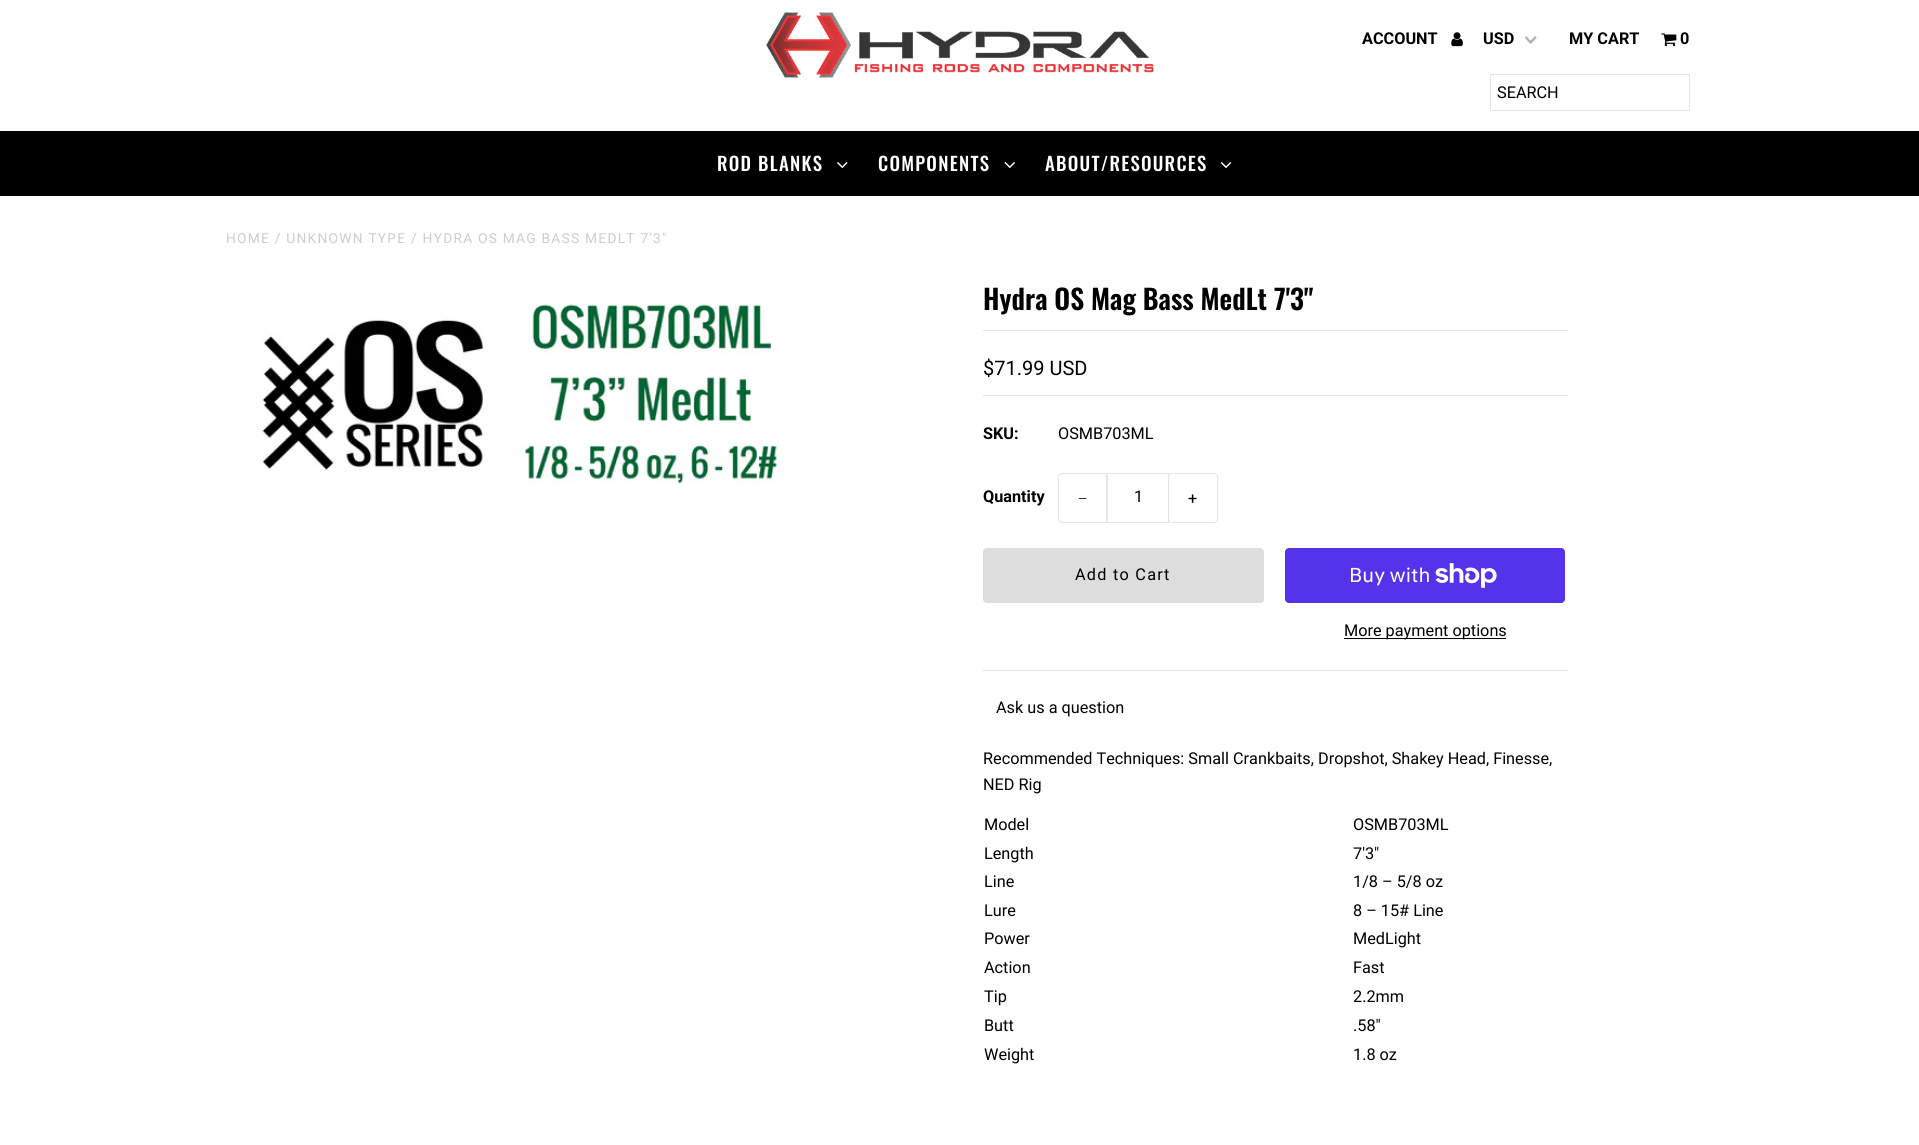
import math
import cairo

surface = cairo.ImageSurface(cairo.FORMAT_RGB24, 1919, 1145)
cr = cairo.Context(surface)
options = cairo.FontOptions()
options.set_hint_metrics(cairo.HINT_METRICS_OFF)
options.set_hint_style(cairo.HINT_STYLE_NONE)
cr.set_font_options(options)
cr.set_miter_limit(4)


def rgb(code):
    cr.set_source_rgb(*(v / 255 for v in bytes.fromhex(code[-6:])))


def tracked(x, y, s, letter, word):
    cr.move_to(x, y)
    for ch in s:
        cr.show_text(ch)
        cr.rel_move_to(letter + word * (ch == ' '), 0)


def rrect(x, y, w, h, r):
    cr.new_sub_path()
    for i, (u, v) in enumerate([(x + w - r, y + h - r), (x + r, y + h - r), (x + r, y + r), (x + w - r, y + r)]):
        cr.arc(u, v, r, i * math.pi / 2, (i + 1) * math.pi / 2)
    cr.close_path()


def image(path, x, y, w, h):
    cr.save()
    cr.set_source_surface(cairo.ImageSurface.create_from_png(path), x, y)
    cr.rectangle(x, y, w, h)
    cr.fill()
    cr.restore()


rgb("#ffffff")
cr.paint()
image("img/1.png", 766, 12, 388, 66)
image("img/2.png", 1451, 32, 12, 15)
image("img/3.png", 1524, 36, 13, 8)
image("img/4.png", 1661, 33, 16, 14)
cr.rectangle(1490.5, 74.5, 199, 36)
rgb("#e5e5e5")
cr.set_line_width(1)
cr.stroke()
rgb("#000000")
cr.rectangle(0, 131, 1919, 65)
cr.fill()
image("img/5.png", 837, 162, 11, 6)
image("img/6.png", 1004, 162, 11, 6)
image("img/7.png", 1220, 162, 12, 6)
image("img/8.png", 262, 303, 517, 182)
for x, y, w, h, color in [
    (983, 330, 585, 1, "#e5e5e5"),
    (983, 670, 585, 1, "#e5e5e5"),
    (983, 395, 585, 1, "#e5e5e5"),
]:
    rgb(color)
    cr.rectangle(x, y, w, h)
    cr.fill()
rrect(1058.5, 473.5, 49, 49, 3.5)
cr.stroke()
cr.rectangle(1106.5, 473.5, 62, 49)
cr.stroke()
rrect(1168.5, 473.5, 49, 49, 3.5)
cr.stroke()
rgb("#dddddd")
rrect(983, 548, 281, 55, 4)
cr.fill()
rgb("#5433eb")
rrect(1285, 548, 280, 55, 4)
cr.fill()
image("img/9.png", 1435, 563, 62, 25)
rgb("#000000")
cr.rectangle(1344, 638, 162, 1)
cr.fill()
cr.select_font_face("Roboto", cairo.FONT_SLANT_NORMAL, cairo.FONT_WEIGHT_BOLD)
cr.set_font_size(16.25)
for x, y, s in [
    (1362, 44, "ACCOUNT"),
    (1483, 44, "USD"),
    (1569, 44, "MY CART"),
    (1680, 44, "0"),
]:
    cr.move_to(x, y)
    cr.show_text(s)
cr.select_font_face("Roboto")
cr.move_to(1497, 98)
cr.show_text("SEARCH")
cr.select_font_face("Oswald Medium")
cr.set_font_size(18.75)
rgb("#ffffff")
for x, y, s in [
    (717, 171, "ROD BLANKS"),
    (878, 171, "COMPONENTS"),
    (1045, 171, "ABOUT/RESOURCES"),
]:
    tracked(x, y, s, 1.25, 0)
cr.select_font_face("Roboto")
cr.set_font_size(13.75)
rgb("#cccccc")
tracked(226, 243, "HOME / UNKNOWN TYPE / HYDRA OS MAG BASS MEDLT 7'3\"", 1.25, 0)
cr.select_font_face("Oswald SemiBold")
cr.set_font_size(27.5)
rgb("#000000")
cr.move_to(983, 310)
cr.show_text("Hydra OS Mag Bass MedLt 7'3\"")
cr.select_font_face("Roboto")
cr.set_font_size(20)
cr.move_to(983, 375)
cr.show_text("$71.99 USD")
cr.select_font_face("Roboto", cairo.FONT_SLANT_NORMAL, cairo.FONT_WEIGHT_BOLD)
cr.set_font_size(16.25)
cr.move_to(983, 439)
cr.show_text("SKU:")
cr.select_font_face("Roboto")
cr.move_to(1058, 439)
cr.show_text("OSMB703ML")
cr.select_font_face("Roboto", cairo.FONT_SLANT_NORMAL, cairo.FONT_WEIGHT_BOLD)
cr.move_to(983, 502)
cr.show_text("Quantity")
cr.select_font_face("Liberation Serif")
tracked(1078, 504, "−", 1.25, 0)
cr.select_font_face("Roboto")
cr.move_to(1134, 502)
cr.show_text("1")
tracked(1188, 504, "+", 1.25, 0)
tracked(1075, 580, "Add to Cart", 1.25, 0)
cr.select_font_face("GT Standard")
cr.set_font_size(20)
rgb("#ffffff")
cr.move_to(1349, 582)
cr.show_text("Buy with")
cr.select_font_face("Roboto")
cr.set_font_size(16.25)
rgb("#000000")
for x, y, s in [
    (1344, 636, "More payment options"),
    (996, 713, "Ask us a question"),
    (983, 764, "Recommended Techniques: Small Crankbaits, Dropshot, Shakey Head, Finesse,"),
    (983, 790, "NED Rig"),
    (984, 830, "Model"),
    (1353, 830, "OSMB703ML"),
    (984, 859, "Length"),
    (1353, 859, "7'3\""),
    (984, 887, "Line"),
    (1353, 887, "1/8 – 5/8 oz"),
    (984, 916, "Lure"),
    (1353, 916, "8 – 15# Line"),
    (984, 944, "Power"),
    (1353, 944, "MedLight"),
    (984, 973, "Action"),
    (1353, 973, "Fast"),
    (984, 1002, "Tip"),
    (1353, 1002, "2.2mm"),
    (984, 1031, "Butt"),
    (1353, 1031, ".58\""),
    (984, 1060, "Weight"),
    (1353, 1060, "1.8 oz"),
]:
    cr.move_to(x, y)
    cr.show_text(s)
surface.write_to_png("page.png")
